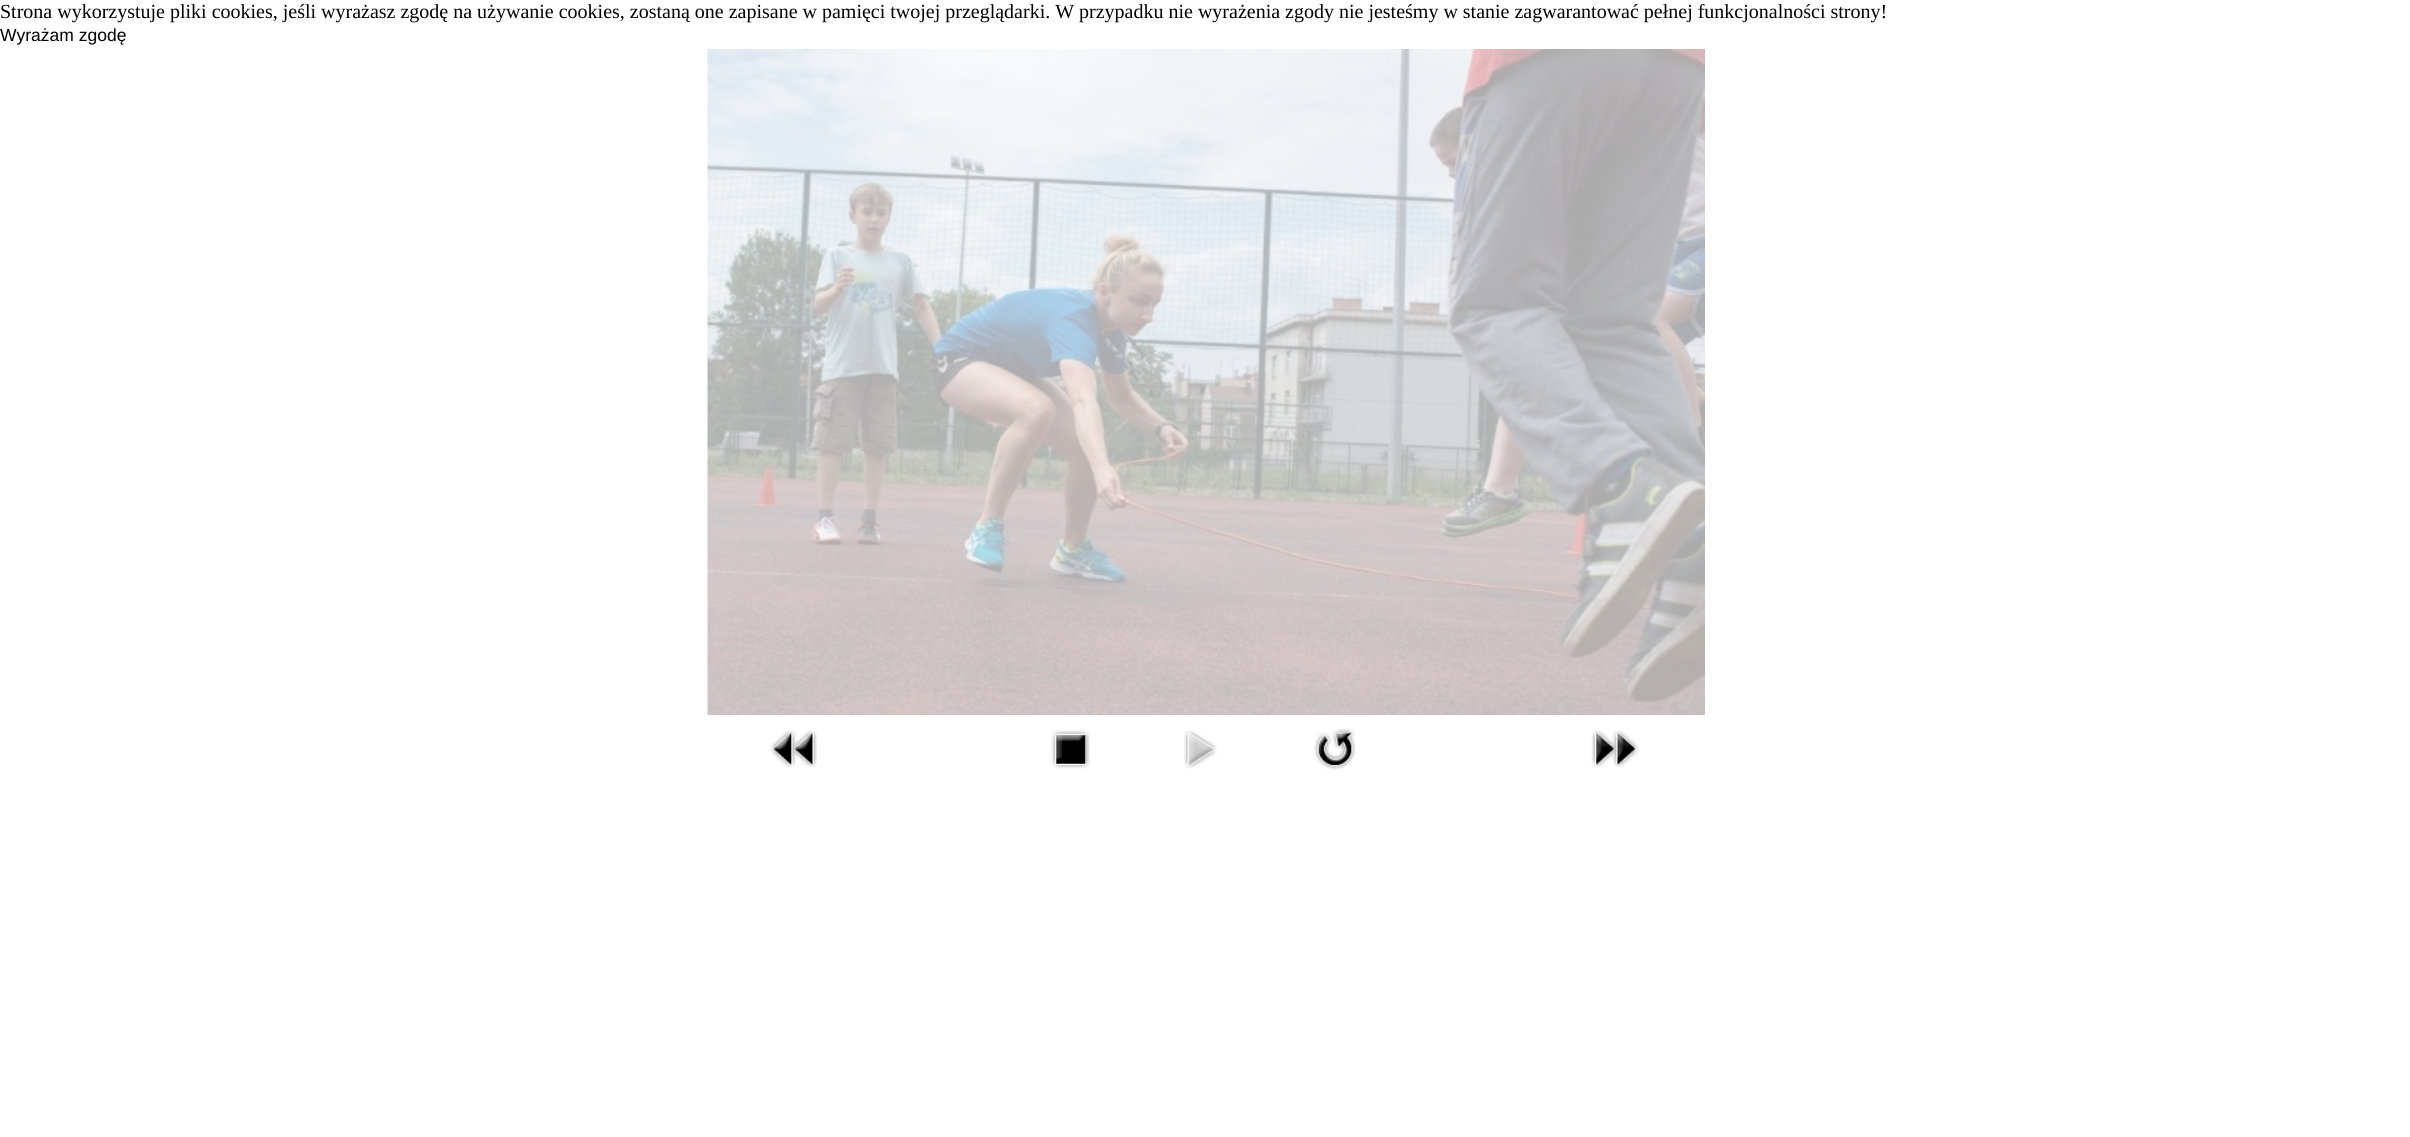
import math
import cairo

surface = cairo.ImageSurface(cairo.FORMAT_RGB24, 2410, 1137)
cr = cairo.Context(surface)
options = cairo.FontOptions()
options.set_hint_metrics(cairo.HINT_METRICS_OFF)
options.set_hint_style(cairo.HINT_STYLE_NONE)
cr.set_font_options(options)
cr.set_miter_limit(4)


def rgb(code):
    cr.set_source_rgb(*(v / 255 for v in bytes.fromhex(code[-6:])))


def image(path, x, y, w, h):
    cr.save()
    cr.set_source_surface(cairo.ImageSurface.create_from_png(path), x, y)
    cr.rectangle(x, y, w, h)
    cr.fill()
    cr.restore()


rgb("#ffffff")
cr.paint()
image("img/1.png", 707, 49, 998, 666)
image("img/2.png", 770, 730, 48, 38)
image("img/3.png", 1051, 730, 39, 39)
image("img/4.png", 1184, 730, 34, 39)
image("img/5.png", 1314, 728, 42, 42)
image("img/6.png", 1591, 730, 48, 38)
cr.select_font_face("Liberation Serif")
cr.set_font_size(20)
rgb("#000000")
cr.move_to(0, 18)
cr.show_text("Strona wykorzystuje pliki cookies, jeśli wyrażasz zgodę na używanie cookies, zostaną one zapisane w pamięci twojej przeglądarki. W przypadku nie wyrażenia zgody nie jesteśmy w stanie zagwarantować pełnej funkcjonalności strony!")
cr.select_font_face("Liberation Sans")
cr.set_font_size(17.5)
cr.move_to(0, 41)
cr.show_text("Wyrażam zgodę")
surface.write_to_png("page.png")
